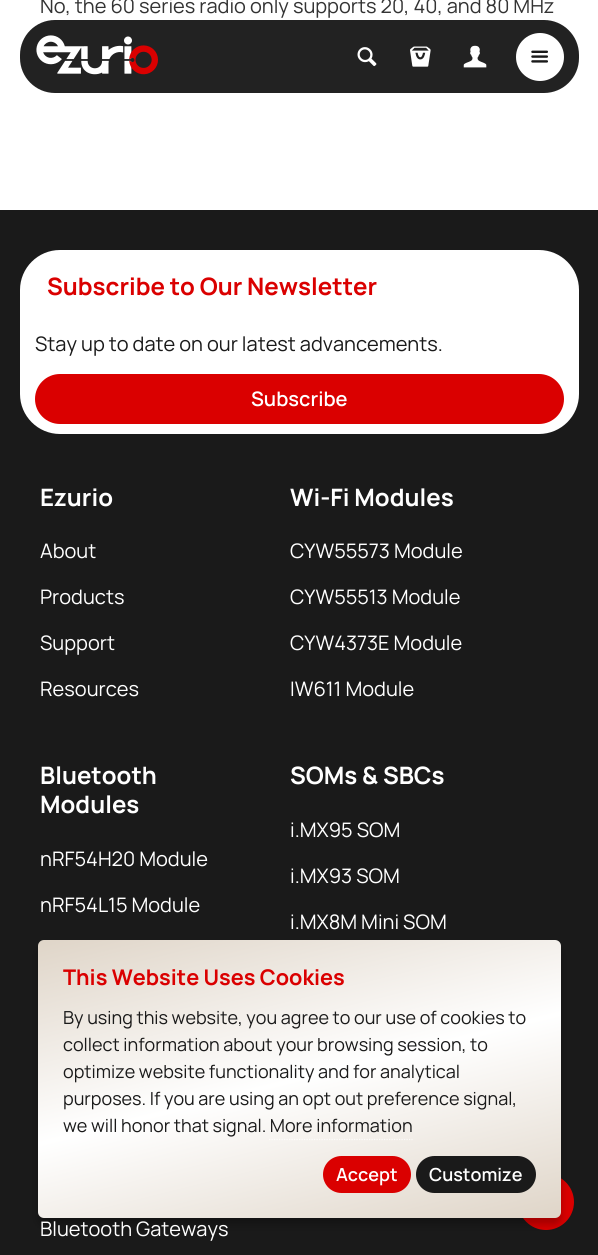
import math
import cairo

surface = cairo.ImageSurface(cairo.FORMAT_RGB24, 598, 1255)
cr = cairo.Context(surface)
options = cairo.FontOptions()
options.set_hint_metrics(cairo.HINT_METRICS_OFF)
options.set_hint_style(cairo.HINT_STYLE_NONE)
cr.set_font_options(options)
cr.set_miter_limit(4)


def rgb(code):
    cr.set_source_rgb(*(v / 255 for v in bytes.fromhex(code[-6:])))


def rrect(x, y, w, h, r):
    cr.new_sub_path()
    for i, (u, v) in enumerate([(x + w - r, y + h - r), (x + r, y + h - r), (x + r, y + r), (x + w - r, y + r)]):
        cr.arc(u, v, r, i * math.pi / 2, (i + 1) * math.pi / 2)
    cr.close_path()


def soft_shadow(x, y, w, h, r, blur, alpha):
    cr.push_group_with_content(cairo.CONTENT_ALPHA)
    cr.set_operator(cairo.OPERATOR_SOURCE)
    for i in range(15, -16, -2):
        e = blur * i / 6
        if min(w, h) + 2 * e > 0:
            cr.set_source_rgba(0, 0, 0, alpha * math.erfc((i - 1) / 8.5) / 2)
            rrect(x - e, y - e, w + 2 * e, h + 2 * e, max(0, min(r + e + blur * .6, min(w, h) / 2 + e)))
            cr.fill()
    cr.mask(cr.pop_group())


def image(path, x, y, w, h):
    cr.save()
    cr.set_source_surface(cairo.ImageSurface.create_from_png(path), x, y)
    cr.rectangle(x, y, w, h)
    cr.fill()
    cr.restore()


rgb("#ffffff")
cr.paint()
rgb("#222222")
rrect(20, 20, 559, 73, 35)
cr.fill()
image("img/1.png", 36, 35, 122, 40)
image("img/2.png", 357, 47, 20, 20)
image("img/3.png", 410, 46, 21, 21)
image("img/4.png", 463, 45, 24, 23)
rgb("#ffffff")
cr.arc(540, 57, 24, 0, 2 * math.pi)
cr.fill()
image("img/5.png", 531, 50, 17, 13)
rgb("#1a1a1a")
cr.rectangle(0, 210, 598, 1045)
cr.fill()
rgb("#ffffff")
rrect(20, 250, 559, 184, 40)
cr.fill()
rgb("#da0000")
rrect(35, 374, 529, 50, 25)
cr.fill()
cr.arc(546, 1202, 28, 0, 2 * math.pi)
cr.fill()
rgb("#000000")
soft_shadow(38, 948, 523, 277, 6, 4, 0.25)
gradient = cairo.LinearGradient(347, 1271, 251, 887)
gradient.add_color_stop_rgba(0, 0.875, 0.835, 0.784, 1)
gradient.add_color_stop_rgba(0.5, 1, 1, 1, 1)
gradient.add_color_stop_rgba(1, 0.875, 0.835, 0.784, 1)
cr.set_source(gradient)
rrect(38, 940, 523, 278, 6)
cr.fill()
cr.new_path()
cr.move_to(269, 1139.5)
cr.line_to(412.5, 1139.5)
cr.set_source_rgba(1, 1, 1, 0.75)
cr.set_line_width(1.2)
cr.set_dash([1.25, 1.25])
cr.stroke()
rgb("#da0000")
rrect(323, 1156, 88, 37, 18.5)
cr.fill()
rgb("#1a1a1a")
rrect(416, 1156, 120, 37, 18.5)
cr.fill()
cr.select_font_face("Manrope")
cr.set_font_size(20)
rgb("#333333")
cr.move_to(40, 13)
cr.show_text("No, the 60 series radio only supports 20, 40, and 80 MHz")
cr.select_font_face("Manrope", cairo.FONT_SLANT_NORMAL, cairo.FONT_WEIGHT_BOLD)
cr.set_font_size(24)
rgb("#da0000")
cr.move_to(47, 295)
cr.show_text("Subscribe to Our Newsletter")
cr.select_font_face("Manrope")
cr.set_font_size(20)
rgb("#1a1a1a")
cr.move_to(35, 351)
cr.show_text("Stay up to date on our latest advancements.")
cr.select_font_face("Manrope SemiBold")
rgb("#ffffff")
cr.move_to(251, 406)
cr.show_text("Subscribe")
cr.select_font_face("Manrope", cairo.FONT_SLANT_NORMAL, cairo.FONT_WEIGHT_BOLD)
cr.set_font_size(24)
cr.move_to(40, 506)
cr.show_text("Ezurio")
cr.select_font_face("Manrope")
cr.set_font_size(20)
for x, y, s in [
    (40, 558, "About"),
    (40, 604, "Products"),
    (40, 650, "Support"),
    (40, 696, "Resources"),
]:
    cr.move_to(x, y)
    cr.show_text(s)
cr.select_font_face("Manrope", cairo.FONT_SLANT_NORMAL, cairo.FONT_WEIGHT_BOLD)
cr.set_font_size(24)
cr.move_to(290, 506)
cr.show_text("Wi-Fi Modules")
cr.select_font_face("Manrope")
cr.set_font_size(20)
for x, y, s in [
    (290, 558, "CYW55573 Module"),
    (290, 604, "CYW55513 Module"),
    (290, 650, "CYW4373E Module"),
    (290, 696, "IW611 Module"),
]:
    cr.move_to(x, y)
    cr.show_text(s)
cr.select_font_face("Manrope", cairo.FONT_SLANT_NORMAL, cairo.FONT_WEIGHT_BOLD)
cr.set_font_size(24)
cr.move_to(40, 784)
cr.show_text("Bluetooth")
cr.move_to(40, 813)
cr.show_text("Modules")
cr.select_font_face("Manrope")
cr.set_font_size(20)
cr.move_to(40, 866)
cr.show_text("nRF54H20 Module")
cr.move_to(40, 912)
cr.show_text("nRF54L15 Module")
cr.select_font_face("Manrope", cairo.FONT_SLANT_NORMAL, cairo.FONT_WEIGHT_BOLD)
cr.set_font_size(24)
cr.move_to(290, 784)
cr.show_text("SOMs & SBCs")
cr.select_font_face("Manrope")
cr.set_font_size(20)
for x, y, s in [
    (290, 837, "i.MX95 SOM"),
    (290, 883, "i.MX93 SOM"),
    (290, 929, "i.MX8M Mini SOM"),
    (40, 1236, "Bluetooth Gateways"),
]:
    cr.move_to(x, y)
    cr.show_text(s)
cr.select_font_face("Manrope", cairo.FONT_SLANT_NORMAL, cairo.FONT_WEIGHT_BOLD)
cr.set_font_size(21.6)
rgb("#da0000")
cr.move_to(63, 985)
cr.show_text("This Website Uses Cookies")
cr.select_font_face("Manrope")
cr.set_font_size(18)
rgb("#1a1a1a")
for x, y, s in [
    (63, 1024, "By using this website, you agree to our use of cookies to"),
    (63, 1051, "collect information about your browsing session, to"),
    (63, 1078, "optimize website functionality and for analytical"),
    (63, 1105, "purposes. If you are using an opt out preference signal,"),
    (63, 1132, "we will honor that signal. More information"),
]:
    cr.move_to(x, y)
    cr.show_text(s)
cr.select_font_face("Manrope SemiBold")
rgb("#ffffff")
cr.move_to(336, 1181)
cr.show_text("Accept")
cr.move_to(429, 1181)
cr.show_text("Customize")
surface.write_to_png("page.png")
